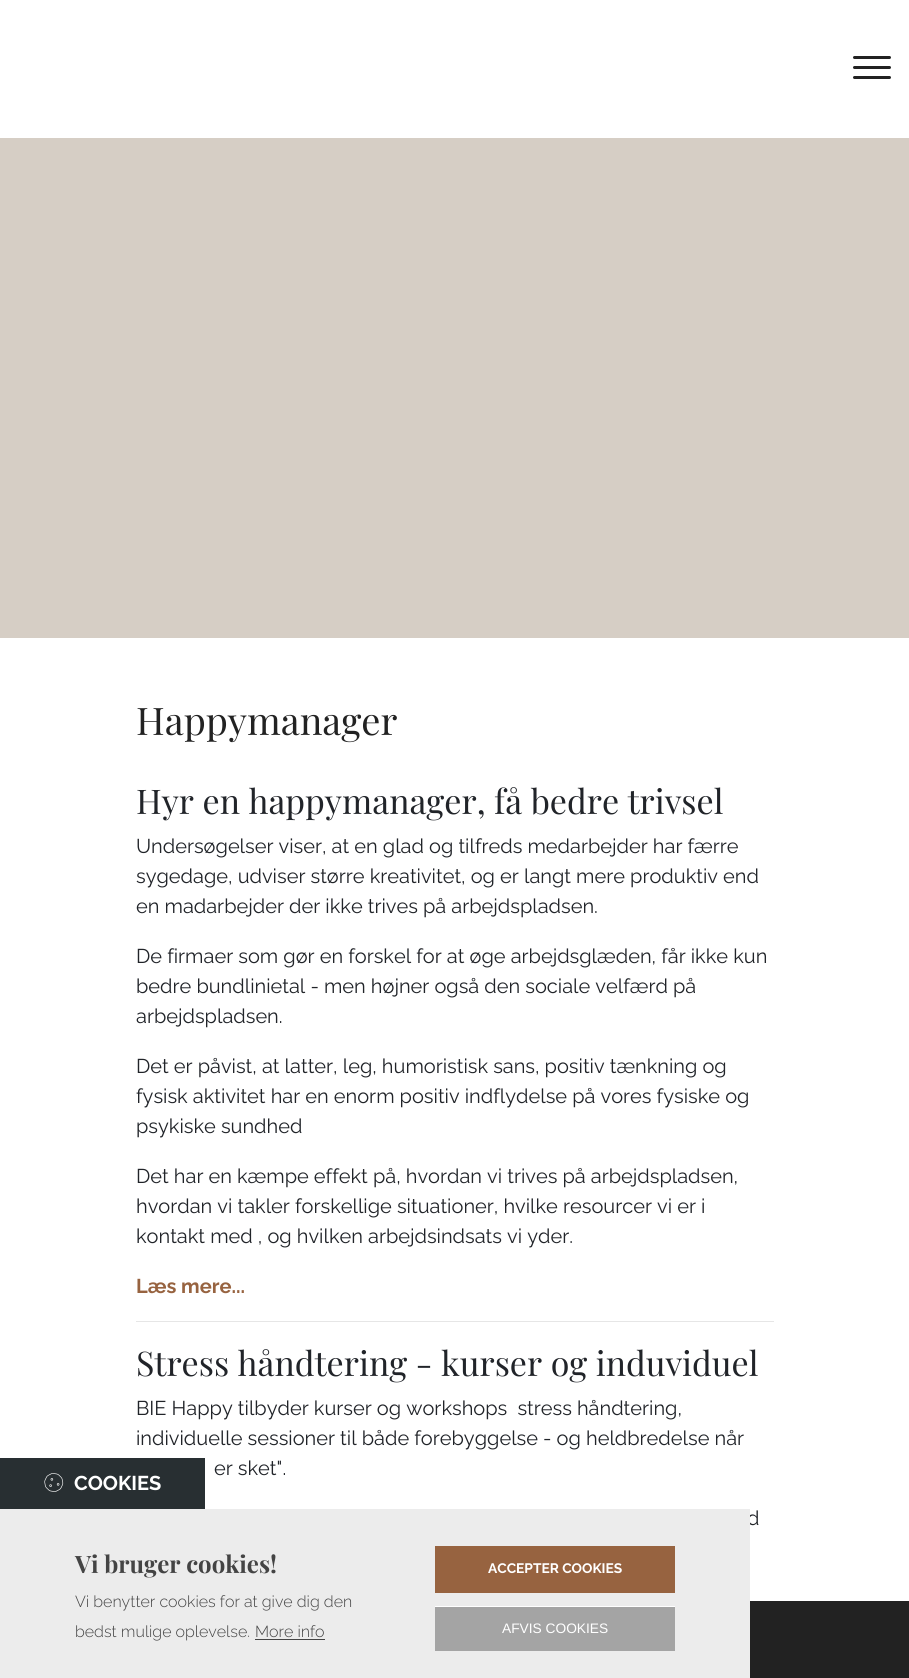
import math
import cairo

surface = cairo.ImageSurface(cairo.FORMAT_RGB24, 909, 1678)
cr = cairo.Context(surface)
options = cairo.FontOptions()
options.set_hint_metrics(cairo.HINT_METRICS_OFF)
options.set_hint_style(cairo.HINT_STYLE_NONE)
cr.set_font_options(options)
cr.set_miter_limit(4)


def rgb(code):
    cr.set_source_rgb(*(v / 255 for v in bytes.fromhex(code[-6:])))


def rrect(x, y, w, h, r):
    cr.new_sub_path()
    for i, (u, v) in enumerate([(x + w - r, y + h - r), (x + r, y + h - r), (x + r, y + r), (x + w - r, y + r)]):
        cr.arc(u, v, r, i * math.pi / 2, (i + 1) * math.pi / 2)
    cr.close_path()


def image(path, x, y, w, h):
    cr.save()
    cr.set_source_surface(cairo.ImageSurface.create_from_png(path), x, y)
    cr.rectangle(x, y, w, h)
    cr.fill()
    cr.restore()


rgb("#ffffff")
cr.paint()
rgb("#222222")
rrect(853, 66, 38, 3, 1.5)
cr.fill()
rrect(853, 56, 38, 3, 1.5)
cr.fill()
rrect(853, 76, 38, 3, 1.5)
cr.fill()
for x, y, w, h, color in [
    (0, 138, 909, 500, "#d6cec5"),
    (136, 1321, 638, 1, "#e6e6e6"),
    (750, 1601, 159, 77, "#222222"),
    (0, 1458, 205, 51, "#282f32"),
]:
    rgb(color)
    cr.rectangle(x, y, w, h)
    cr.fill()
image("img/1.png", 44, 1473, 20, 19)
cr.select_font_face("Playfair Display")
cr.set_font_size(38)
rgb("#222222")
cr.move_to(136, 735)
cr.show_text("Happymanager")
cr.set_font_size(34)
rgb("#212429")
cr.move_to(136, 814)
cr.show_text("Hyr en happymanager, få bedre trivsel")
cr.select_font_face("Raleway")
cr.set_font_size(20)
for x, y, s in [
    (136, 853, "Undersøgelser viser, at en glad og tilfreds medarbejder har færre"),
    (136, 883, "sygedage, udviser større kreativitet, og er langt mere produktiv end"),
    (136, 913, "en madarbejder der ikke trives på arbejdspladsen."),
    (136, 963, "De firmaer som gør en forskel for at øge arbejdsglæden, får ikke kun"),
    (136, 993, "bedre bundlinietal - men højner også den sociale velfærd på"),
    (136, 1023, "arbejdspladsen."),
    (136, 1073, "Det er påvist, at latter, leg, humoristisk sans, positiv tænkning og"),
    (136, 1103, "fysisk aktivitet har en enorm positiv indflydelse på vores fysiske og"),
    (136, 1133, "psykiske sundhed"),
    (136, 1183, "Det har en kæmpe effekt på, hvordan vi trives på arbejdspladsen,"),
    (136, 1213, "hvordan vi takler forskellige situationer, hvilke resourcer vi er i"),
    (136, 1243, "kontakt med , og hvilken arbejdsindsats vi yder."),
]:
    cr.move_to(x, y)
    cr.show_text(s)
cr.select_font_face("Raleway", cairo.FONT_SLANT_NORMAL, cairo.FONT_WEIGHT_BOLD)
rgb("#976340")
cr.move_to(136, 1293)
cr.show_text("Læs mere...")
cr.select_font_face("Playfair Display")
cr.set_font_size(34)
rgb("#212429")
cr.move_to(136, 1376)
cr.show_text("Stress håndtering - kurser og induviduel")
cr.select_font_face("Raleway")
cr.set_font_size(20)
for x, y, s in [
    (136, 1415, "BIE Happy tilbyder kurser og workshops  stress håndtering,"),
    (136, 1445, "individuelle sessioner til både forebyggelse - og heldbredelse når"),
    (214, 1475, "er sket\"."),
    (747, 1525, "d"),
]:
    cr.move_to(x, y)
    cr.show_text(s)
rgb("#ececec")
cr.rectangle(0, 1509, 750, 169)
cr.fill()
cr.select_font_face("Raleway", cairo.FONT_SLANT_NORMAL, cairo.FONT_WEIGHT_BOLD)
rgb("#ffffff")
cr.move_to(74, 1490)
cr.show_text("COOKIES")
cr.select_font_face("Playfair Display", cairo.FONT_SLANT_NORMAL, cairo.FONT_WEIGHT_BOLD)
cr.set_font_size(24)
rgb("#444444")
cr.move_to(75, 1573)
cr.show_text("Vi bruger cookies!")
cr.select_font_face("Raleway Light")
cr.set_font_size(16)
for x, y, s in [
    (75, 1607, "Vi benytter cookies for at give dig den"),
    (75, 1637, "bedst mulige oplevelse."),
    (255, 1637, "More info"),
]:
    cr.move_to(x, y)
    cr.show_text(s)
cr.rectangle(255, 1639, 70, 1)
cr.fill()
rgb("#976340")
cr.rectangle(435, 1546, 240, 47)
cr.fill()
cr.select_font_face("Raleway", cairo.FONT_SLANT_NORMAL, cairo.FONT_WEIGHT_BOLD)
cr.set_font_size(13.75)
rgb("#ffffff")
cr.move_to(488, 1573)
cr.show_text("ACCEPTER COOKIES")
rgb("#a4a4a4")
cr.rectangle(435, 1607, 240, 44)
cr.fill()
rgb("#ffffff")
cr.rectangle(435, 1606, 240, 1)
cr.fill()
cr.select_font_face("Liberation Sans")
cr.move_to(502, 1633)
cr.show_text("AFVIS COOKIES")
surface.write_to_png("page.png")
